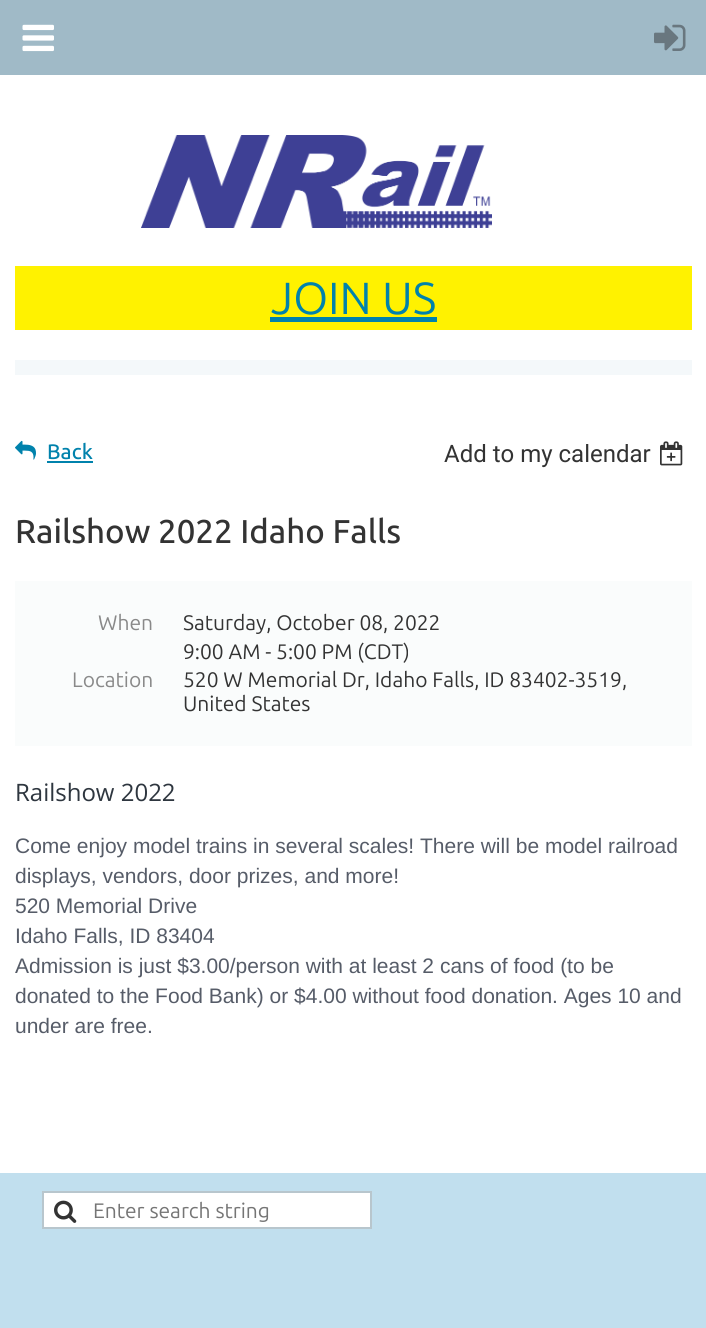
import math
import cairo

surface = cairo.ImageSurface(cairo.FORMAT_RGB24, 706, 1328)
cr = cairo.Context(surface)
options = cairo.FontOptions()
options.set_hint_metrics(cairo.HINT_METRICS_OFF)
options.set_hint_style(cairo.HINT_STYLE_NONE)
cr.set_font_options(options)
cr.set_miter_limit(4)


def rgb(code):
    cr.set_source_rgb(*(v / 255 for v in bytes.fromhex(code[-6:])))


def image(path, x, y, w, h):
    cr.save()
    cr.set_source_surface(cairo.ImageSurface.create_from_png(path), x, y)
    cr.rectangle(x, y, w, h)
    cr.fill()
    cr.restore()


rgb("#ffffff")
cr.paint()
rgb("#a0bac7")
cr.rectangle(0, 0, 706, 75)
cr.fill()
image("img/1.png", 22, 24, 32, 28)
image("img/2.png", 654, 24, 32, 27)
image("img/3.png", 141, 135, 351, 93)
for x, y, w, h, color in [
    (15, 266, 677, 64, "#fff200"),
    (270, 317, 167, 5, "#0082ac"),
    (15, 360, 677, 15, "#f4f8fa"),
]:
    rgb(color)
    cr.rectangle(x, y, w, h)
    cr.fill()
image("img/4.png", 15, 440, 21, 20)
rgb("#0082ac")
cr.rectangle(47, 461, 46, 2)
cr.fill()
image("img/5.png", 660, 441, 23, 25)
rgb("#fafcfc")
cr.rectangle(15, 581, 677, 165)
cr.fill()
rgb("#c1dfee")
cr.rectangle(0, 1173, 706, 155)
cr.fill()
rgb("#ffffff")
cr.rectangle(43, 1192, 328, 36)
cr.fill_preserve()
rgb("#b8c6cd")
cr.stroke()
image("img/6.png", 54, 1200, 23, 23)
cr.select_font_face("Ubuntu")
cr.set_font_size(45)
rgb("#0082ac")
cr.move_to(271, 314)
cr.show_text("JOIN US")
cr.select_font_face("Ubuntu Medium")
cr.set_font_size(21)
cr.move_to(47, 459)
cr.show_text("Back")
cr.select_font_face("Roboto")
cr.set_font_size(24)
rgb("#333333")
cr.move_to(444, 462)
cr.show_text("Add to my calendar")
cr.select_font_face("Ubuntu Medium")
cr.set_font_size(33)
cr.move_to(15, 543)
cr.show_text("Railshow 2022 Idaho Falls")
cr.select_font_face("Ubuntu")
cr.set_font_size(21)
rgb("#898989")
cr.move_to(98, 630)
cr.show_text("When")
rgb("#333333")
cr.move_to(183, 630)
cr.show_text("Saturday, October 08, 2022")
cr.move_to(183, 659)
cr.show_text("9:00 AM - 5:00 PM (CDT)")
rgb("#898989")
cr.move_to(72, 687)
cr.show_text("Location")
rgb("#333333")
cr.move_to(183, 687)
cr.show_text("520 W Memorial Dr, Idaho Falls, ID 83402-3519,")
cr.move_to(183, 711)
cr.show_text("United States")
cr.select_font_face("Open Sans")
cr.set_font_size(24)
rgb("#2e363f")
cr.move_to(15, 801)
cr.show_text("Railshow 2022")
cr.select_font_face("Liberation Sans")
cr.set_font_size(21)
rgb("#565c68")
for x, y, s in [
    (15, 853, "Come enjoy model trains in several scales! There will be model railroad"),
    (15, 883, "displays, vendors, door prizes, and more!"),
    (15, 913, "520 Memorial Drive"),
    (15, 943, "Idaho Falls, ID 83404"),
    (15, 973, "Admission is just $3.00/person with at least 2 cans of food (to be"),
    (15, 1003, "donated to the Food Bank) or $4.00 without food donation. Ages 10 and"),
    (15, 1033, "under are free."),
]:
    cr.move_to(x, y)
    cr.show_text(s)
cr.select_font_face("Ubuntu")
rgb("#757575")
cr.move_to(93, 1218)
cr.show_text("Enter search string")
surface.write_to_png("page.png")
